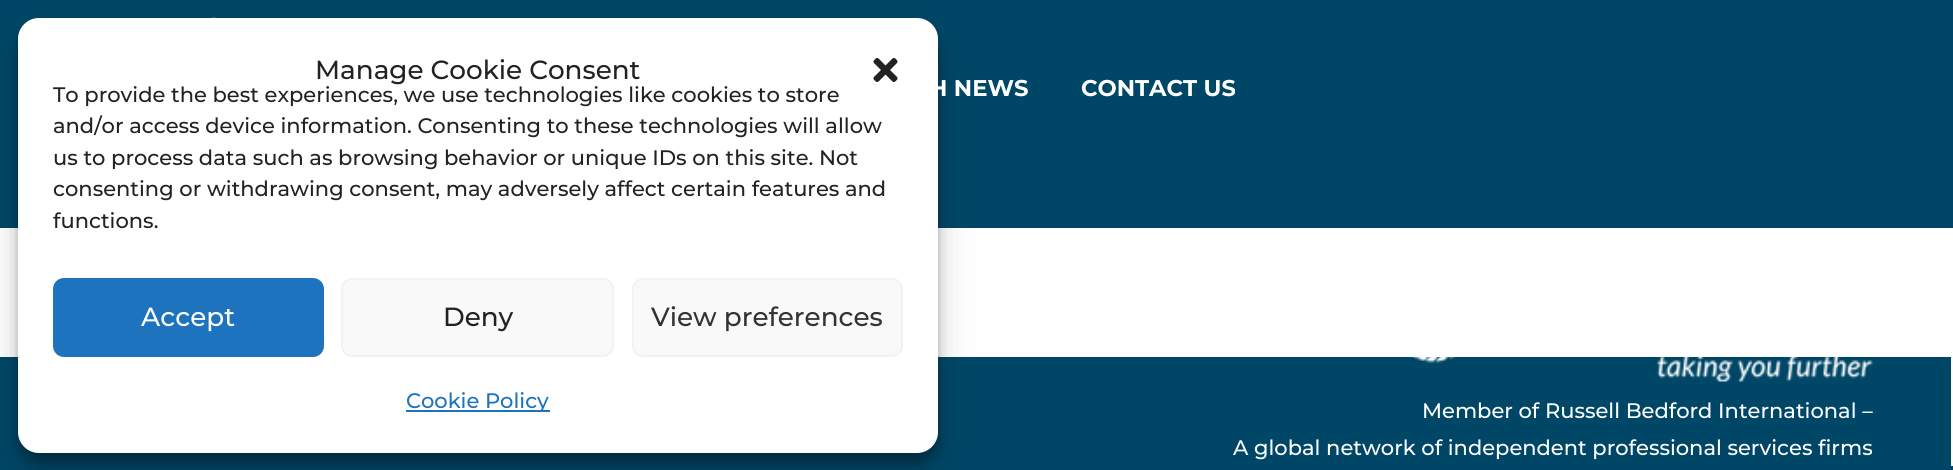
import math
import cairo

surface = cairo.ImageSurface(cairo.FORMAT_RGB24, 1953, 470)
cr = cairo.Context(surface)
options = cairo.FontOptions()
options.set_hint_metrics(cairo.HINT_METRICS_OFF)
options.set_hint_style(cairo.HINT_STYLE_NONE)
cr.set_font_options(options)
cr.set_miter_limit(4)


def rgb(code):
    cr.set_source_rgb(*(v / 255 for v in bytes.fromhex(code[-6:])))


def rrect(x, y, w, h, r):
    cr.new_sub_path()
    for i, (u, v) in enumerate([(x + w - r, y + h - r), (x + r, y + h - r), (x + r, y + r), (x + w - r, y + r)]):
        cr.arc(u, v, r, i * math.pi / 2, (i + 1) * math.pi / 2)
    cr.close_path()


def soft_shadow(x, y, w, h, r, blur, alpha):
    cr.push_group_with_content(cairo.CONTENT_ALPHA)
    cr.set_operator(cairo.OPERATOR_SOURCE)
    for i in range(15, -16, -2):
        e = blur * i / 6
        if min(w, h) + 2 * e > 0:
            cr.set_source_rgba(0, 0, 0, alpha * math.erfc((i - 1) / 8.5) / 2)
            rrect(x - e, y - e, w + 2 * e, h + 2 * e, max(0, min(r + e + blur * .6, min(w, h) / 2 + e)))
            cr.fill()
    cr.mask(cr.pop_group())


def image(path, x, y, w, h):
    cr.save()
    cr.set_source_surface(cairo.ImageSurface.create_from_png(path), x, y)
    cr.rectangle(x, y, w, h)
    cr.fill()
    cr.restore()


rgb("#ffffff")
cr.paint()
rgb("#004767")
cr.rectangle(0, 0, 1953, 228)
cr.fill()
image("img/2.png", 212, 17, 4, 1)
cr.rectangle(0, 357, 1953, 113)
cr.fill()
rgb("#000000")
soft_shadow(18, 28, 920, 436, 21, 5, 0.23)
soft_shadow(18, 35, 920, 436, 21, 17.5, 0.19)
rgb("#ffffff")
rrect(18, 18, 920, 435, 21)
cr.fill()
image("img/1.png", 873, 58, 25, 24)
rgb("#1e73be")
rrect(54, 279, 269, 77, 10)
cr.fill_preserve()
cr.stroke()
rgb("#f9f9f9")
rrect(342, 279, 271, 77, 10)
cr.fill_preserve()
rgb("#f2f2f2")
cr.stroke()
rgb("#f9f9f9")
rrect(633, 279, 269, 77, 10)
cr.fill_preserve()
rgb("#f2f2f2")
cr.stroke()
rgb("#1e73be")
cr.rectangle(406, 410, 144, 2)
cr.fill()
rgb("#ffffff")
cr.rectangle(1951, 357, 2, 109)
cr.fill()
image("img/3.png", 1411, 357, 462, 25)
cr.select_font_face("Montserrat Medium")
cr.set_font_size(26.25)
rgb("#222222")
cr.move_to(315, 79)
cr.show_text("Manage Cookie Consent")
cr.set_font_size(21)
for x, y, s in [
    (53, 102, "To provide the best experiences, we use technologies like cookies to store"),
    (53, 133, "and/or access device information. Consenting to these technologies will allow"),
    (53, 165, "us to process data such as browsing behavior or unique IDs on this site. Not"),
    (53, 196, "consenting or withdrawing consent, may adversely affect certain features and"),
    (53, 228, "functions."),
]:
    cr.move_to(x, y)
    cr.show_text(s)
cr.set_font_size(26.25)
rgb("#ffffff")
cr.move_to(141, 326)
cr.show_text("Accept")
rgb("#222222")
cr.move_to(443, 326)
cr.show_text("Deny")
rgb("#333333")
cr.move_to(651, 326)
cr.show_text("View preferences")
cr.set_font_size(21)
rgb("#1e73be")
cr.move_to(406, 408)
cr.show_text("Cookie Policy")
cr.select_font_face("Montserrat", cairo.FONT_SLANT_NORMAL, cairo.FONT_WEIGHT_BOLD)
cr.set_font_size(22.75)
rgb("#ffffff")
cr.move_to(929, 96)
cr.show_text("H NEWS")
cr.move_to(1081, 96)
cr.show_text("CONTACT US")
cr.select_font_face("Montserrat Medium")
cr.set_font_size(21)
cr.move_to(1422, 418)
cr.show_text("Member of Russell Bedford International –")
cr.move_to(1233, 455)
cr.show_text("A global network of independent professional services firms")
surface.write_to_png("page.png")
